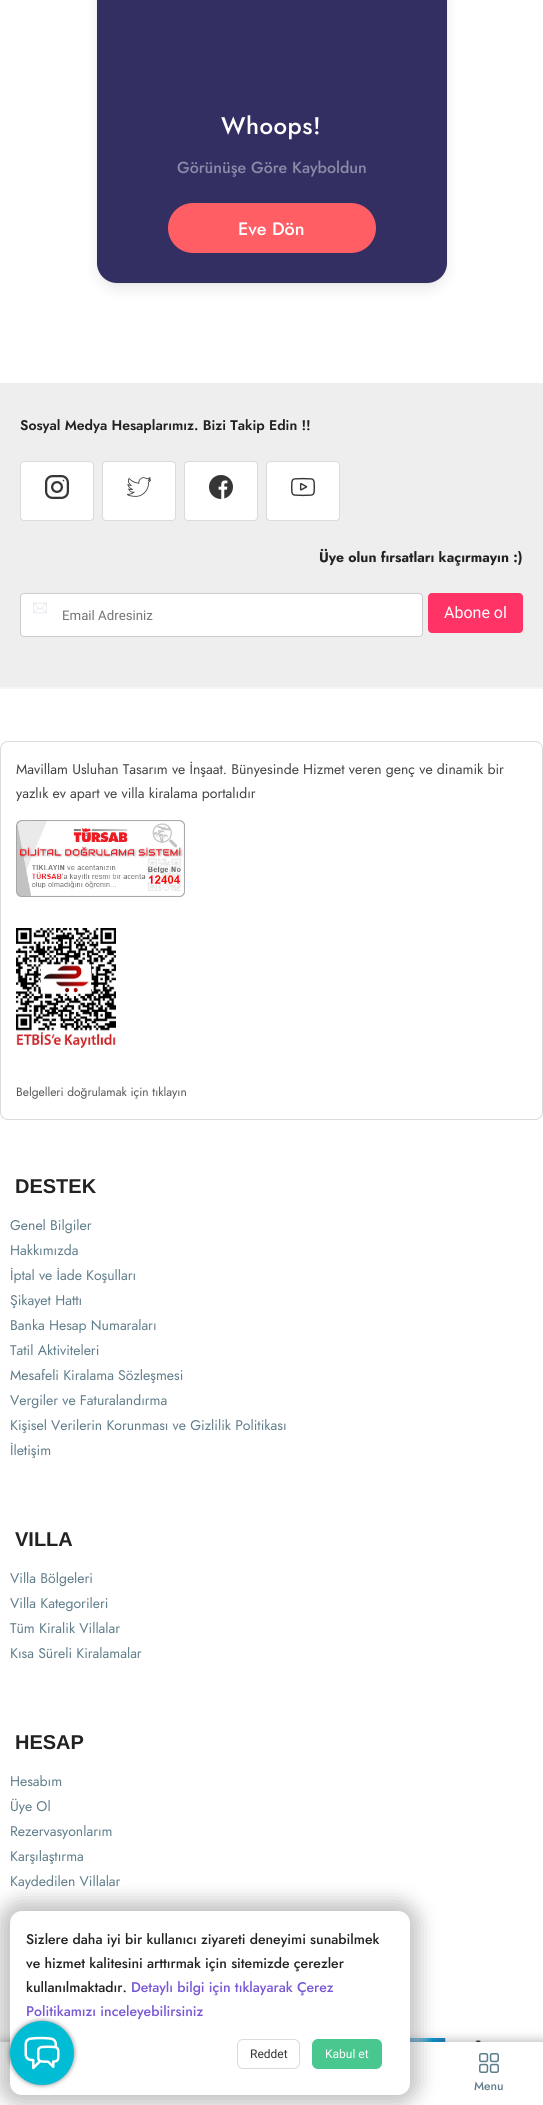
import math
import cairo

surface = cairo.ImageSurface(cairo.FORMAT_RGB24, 543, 2105)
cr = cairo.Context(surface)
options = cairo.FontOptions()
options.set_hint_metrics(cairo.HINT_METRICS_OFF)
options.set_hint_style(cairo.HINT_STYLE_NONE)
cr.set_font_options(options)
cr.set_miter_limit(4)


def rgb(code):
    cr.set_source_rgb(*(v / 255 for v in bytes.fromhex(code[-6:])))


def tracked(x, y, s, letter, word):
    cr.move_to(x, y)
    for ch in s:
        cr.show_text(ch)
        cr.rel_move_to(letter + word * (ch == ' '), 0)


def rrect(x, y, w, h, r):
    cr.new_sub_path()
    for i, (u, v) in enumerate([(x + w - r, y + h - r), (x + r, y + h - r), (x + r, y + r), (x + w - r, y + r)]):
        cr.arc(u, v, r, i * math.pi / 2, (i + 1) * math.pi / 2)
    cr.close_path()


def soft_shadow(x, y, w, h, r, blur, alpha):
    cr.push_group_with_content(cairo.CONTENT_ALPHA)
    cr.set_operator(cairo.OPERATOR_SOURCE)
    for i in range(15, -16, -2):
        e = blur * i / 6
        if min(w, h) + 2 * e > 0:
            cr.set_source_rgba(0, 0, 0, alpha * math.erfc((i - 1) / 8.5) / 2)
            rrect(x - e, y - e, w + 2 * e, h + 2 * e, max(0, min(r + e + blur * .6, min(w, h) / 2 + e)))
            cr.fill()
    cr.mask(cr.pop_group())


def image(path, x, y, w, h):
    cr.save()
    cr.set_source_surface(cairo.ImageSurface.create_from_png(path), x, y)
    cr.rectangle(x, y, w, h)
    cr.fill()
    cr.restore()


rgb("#ffffff")
cr.paint()
rrect(96.5, -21.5, 351, 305, 20.5)
rgb("#fafafa")
cr.set_line_width(1)
cr.stroke()
rgb("#0a0a0a")
soft_shadow(99, -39, 346, 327, 18, 7, 0.1)
rgb("#332f63")
rrect(97, -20, 350, 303, 20)
cr.fill()
rgb("#ff5e65")
rrect(168, 203, 208, 50, 25)
cr.fill()
rgb("#eeeeee")
cr.rectangle(0, 383, 543, 304)
cr.fill()
rgb("#ffffff")
rrect(20.5, 461.5, 73, 59, 3.5)
cr.fill_preserve()
rgb("#dbdbdb")
cr.stroke()
image("img/1.png", 45, 475, 24, 24)
rgb("#ffffff")
rrect(102.5, 461.5, 73, 59, 3.5)
cr.fill_preserve()
rgb("#dbdbdb")
cr.stroke()
image("img/2.png", 127, 477, 24, 20)
rgb("#ffffff")
rrect(184.5, 461.5, 73, 59, 3.5)
cr.fill_preserve()
rgb("#dbdbdb")
cr.stroke()
image("img/3.png", 209, 475, 24, 24)
rgb("#ffffff")
rrect(266.5, 461.5, 73, 59, 3.5)
cr.fill_preserve()
rgb("#dbdbdb")
cr.stroke()
image("img/4.png", 291, 477, 24, 20)
rgb("#ffffff")
rrect(20.5, 593.5, 402, 43, 3.5)
cr.fill_preserve()
rgb("#cccccc")
cr.stroke()
image("img/5.png", 33, 602, 14, 12)
rgb("#ff3366")
rrect(428, 593, 95, 40, 4)
cr.fill()
rgb("#f5f5f5")
cr.rectangle(0, 687, 543, 2)
cr.fill()
rrect(0.5, 741.5, 542, 378, 7.5)
rgb("#dbdbdb")
cr.stroke()
image("img/6.png", 16, 820, 169, 77)
image("img/7.png", 16, 928, 100, 120)
image("img/8.png", 410, 2038, 71, 4)
rgb("#000000")
soft_shadow(1, 2041, 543, 63, 0, 5.5, 0.29)
rgb("#ffffff")
cr.rectangle(0, 2042, 543, 63)
cr.fill()
rgb("#000000")
soft_shadow(-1, 1901, 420, 204, 22, 10, 0.24)
rgb("#ffffff")
rrect(10, 1911, 400, 184, 12)
cr.fill()
rrect(237.5, 2039.5, 62, 29, 5.5)
rgb("#dbdbdb")
cr.stroke()
rgb("#48c78e")
rrect(312, 2039, 70, 30, 6)
cr.fill()
rgb("#000000")
soft_shadow(10, 2021, 64, 64, 32, 2.5, 0.5)
rgb("#00bcd4")
cr.arc(42, 2053, 32, 0, 2 * math.pi)
cr.fill()
image("img/9.png", 24, 2036, 36, 34)
image("img/10.png", 479, 2053, 20, 20)
cr.select_font_face("Jost Medium")
cr.set_font_size(24)
rgb("#ffffff")
tracked(221, 134, "Whoops!", 0.5, 0)
cr.set_font_size(16)
rgb("#8c8aa7")
cr.move_to(177, 173)
cr.show_text("Görünüşe Göre Kayboldun")
cr.set_font_size(18)
rgb("#ffffff")
cr.move_to(238, 235)
cr.show_text("Eve Dön")
cr.select_font_face("Jost SemiBold")
cr.set_font_size(14)
rgb("#222222")
cr.move_to(20, 430)
cr.show_text("Sosyal Medya Hesaplarımız. Bizi Takip Edin !!")
cr.select_font_face("Jost", cairo.FONT_SLANT_NORMAL, cairo.FONT_WEIGHT_BOLD)
cr.move_to(319, 562)
cr.show_text("Üye olun fırsatları kaçırmayın :)")
cr.select_font_face("Roboto")
cr.set_font_size(13.25)
rgb("#757575")
cr.move_to(62, 620)
cr.show_text("Email Adresiniz")
cr.set_font_size(16)
rgb("#ffffff")
cr.move_to(444, 618)
cr.show_text("Abone ol")
cr.select_font_face("Jost")
cr.set_font_size(14)
rgb("#434343")
cr.move_to(16, 774)
cr.show_text("Mavillam Usluhan Tasarım ve İnşaat. Bünyesinde Hizmet veren genç ve dinamik bir")
cr.move_to(16, 798)
cr.show_text("yazlık ev apart ve villa kiralama portalıdır")
cr.set_font_size(12)
rgb("#565656")
cr.move_to(16, 1096)
cr.show_text("Belgelleri doğrulamak için tıklayın")
cr.select_font_face("Liberation Sans", cairo.FONT_SLANT_NORMAL, cairo.FONT_WEIGHT_BOLD)
cr.set_font_size(20)
rgb("#222222")
cr.move_to(15, 1193)
cr.show_text("DESTEK")
cr.select_font_face("Jost")
cr.set_font_size(14)
rgb("#607d8b")
for x, y, s in [
    (10, 1230, "Genel Bilgiler"),
    (10, 1255, "Hakkımızda"),
    (10, 1280, "İptal ve İade Koşulları"),
    (10, 1305, "Şikayet Hattı"),
    (10, 1330, "Banka Hesap Numaraları"),
    (10, 1355, "Tatil Aktiviteleri"),
    (10, 1380, "Mesafeli Kiralama Sözleşmesi"),
    (10, 1405, "Vergiler ve Faturalandırma"),
    (10, 1430, "Kişisel Verilerin Korunması ve Gizlilik Politikası"),
    (10, 1455, "İletişim"),
]:
    cr.move_to(x, y)
    cr.show_text(s)
cr.select_font_face("Liberation Sans", cairo.FONT_SLANT_NORMAL, cairo.FONT_WEIGHT_BOLD)
cr.set_font_size(20)
rgb("#222222")
cr.move_to(15, 1546)
cr.show_text("VILLA")
cr.select_font_face("Jost")
cr.set_font_size(14)
rgb("#607d8b")
for x, y, s in [
    (10, 1583, "Villa Bölgeleri"),
    (10, 1608, "Villa Kategorileri"),
    (10, 1633, "Tüm Kiralik Villalar"),
    (10, 1658, "Kısa Süreli Kiralamalar"),
]:
    cr.move_to(x, y)
    cr.show_text(s)
cr.select_font_face("Liberation Sans", cairo.FONT_SLANT_NORMAL, cairo.FONT_WEIGHT_BOLD)
cr.set_font_size(20)
rgb("#222222")
cr.move_to(15, 1749)
cr.show_text("HESAP")
cr.select_font_face("Jost")
cr.set_font_size(14)
rgb("#607d8b")
for x, y, s in [
    (10, 1786, "Hesabım"),
    (10, 1811, "Üye Ol"),
    (10, 1836, "Rezervasyonlarım"),
    (10, 1861, "Karşılaştırma"),
    (10, 1886, "Kaydedilen Villalar"),
]:
    cr.move_to(x, y)
    cr.show_text(s)
cr.select_font_face("Jost Medium")
rgb("#222222")
for x, y, s in [
    (26, 1944, "Sizlere daha iyi bir kullanıcı ziyareti deneyimi sunabilmek"),
    (26, 1968, "ve hizmet kalitesini arttırmak için sitemizde çerezler"),
    (26, 1992, "kullanılmaktadır."),
]:
    cr.move_to(x, y)
    cr.show_text(s)
rgb("#7957d5")
cr.move_to(131, 1992)
cr.show_text("Detaylı bilgi için tıklayarak Çerez")
cr.move_to(26, 2016)
cr.show_text("Politikamızı inceleyebilirsiniz")
cr.select_font_face("Roboto")
cr.set_font_size(12)
rgb("#363636")
cr.move_to(250, 2058)
cr.show_text("Reddet")
rgb("#ffffff")
cr.move_to(325, 2058)
cr.show_text("Kabul et")
cr.select_font_face("Jost Medium")
rgb("#607d8b")
cr.move_to(474, 2090)
cr.show_text("Menu")
surface.write_to_png("page.png")
